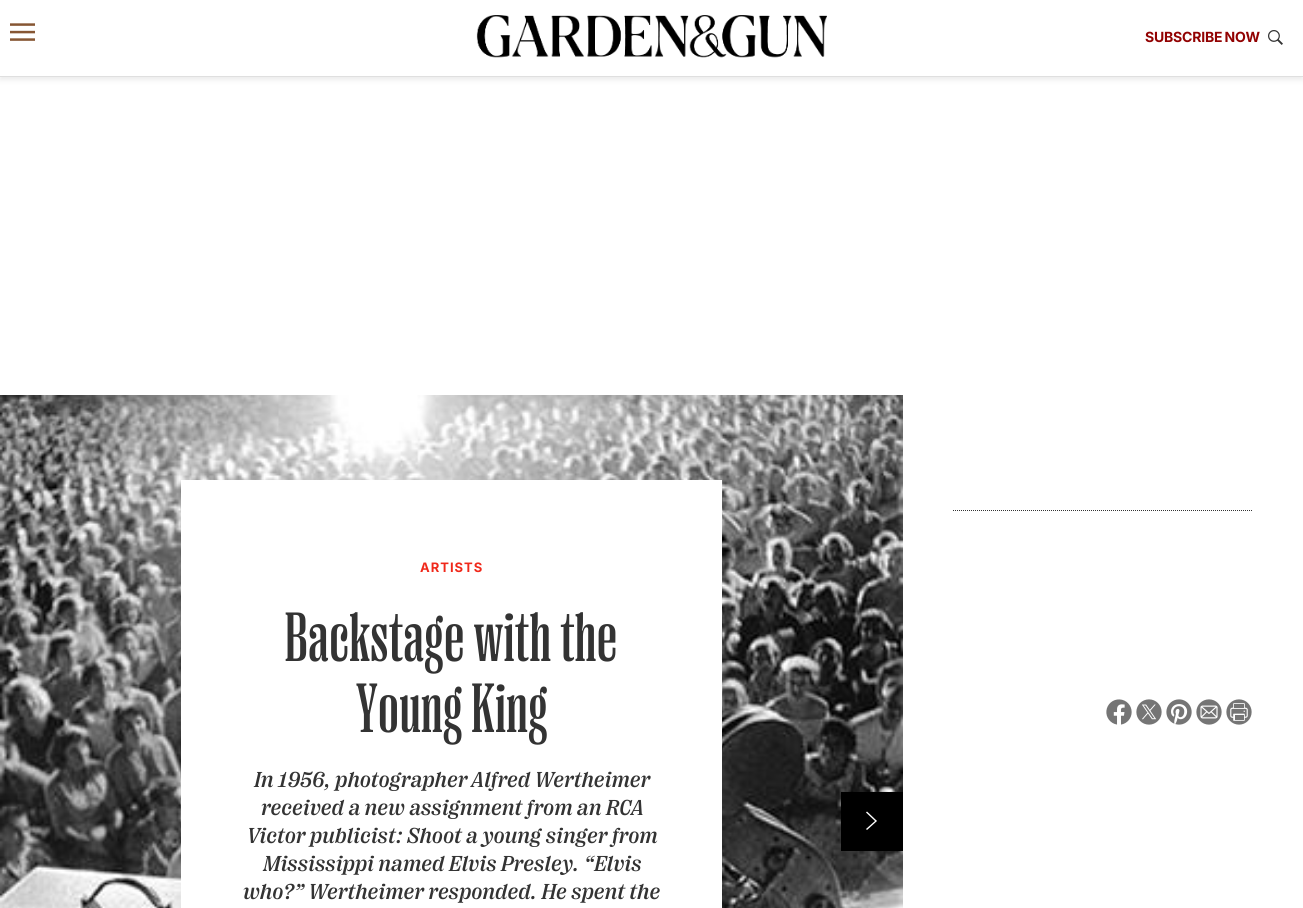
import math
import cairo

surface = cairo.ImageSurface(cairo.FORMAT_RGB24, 1303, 908)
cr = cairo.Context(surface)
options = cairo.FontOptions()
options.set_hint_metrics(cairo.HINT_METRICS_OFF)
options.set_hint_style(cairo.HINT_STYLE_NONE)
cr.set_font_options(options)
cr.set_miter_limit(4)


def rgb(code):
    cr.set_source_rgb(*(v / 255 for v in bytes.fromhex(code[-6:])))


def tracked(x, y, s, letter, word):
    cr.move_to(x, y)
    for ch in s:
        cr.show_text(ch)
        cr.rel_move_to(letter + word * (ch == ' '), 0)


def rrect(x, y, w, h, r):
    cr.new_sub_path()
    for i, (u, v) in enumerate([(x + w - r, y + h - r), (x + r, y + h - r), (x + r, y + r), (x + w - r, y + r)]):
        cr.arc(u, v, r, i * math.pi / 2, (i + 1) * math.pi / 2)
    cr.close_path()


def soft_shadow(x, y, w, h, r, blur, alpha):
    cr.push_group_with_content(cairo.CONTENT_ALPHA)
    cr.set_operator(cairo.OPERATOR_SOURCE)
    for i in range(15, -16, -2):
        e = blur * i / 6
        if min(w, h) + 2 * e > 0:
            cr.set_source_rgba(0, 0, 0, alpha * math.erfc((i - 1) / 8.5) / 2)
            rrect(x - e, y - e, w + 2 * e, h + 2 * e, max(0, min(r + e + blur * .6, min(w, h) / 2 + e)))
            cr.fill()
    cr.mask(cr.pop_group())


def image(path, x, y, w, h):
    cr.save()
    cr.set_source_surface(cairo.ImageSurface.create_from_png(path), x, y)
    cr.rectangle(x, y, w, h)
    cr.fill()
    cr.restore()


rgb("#ffffff")
cr.paint()
cr.save()
cr.rectangle(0, 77, 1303, 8)
cr.clip()
rgb("#dfdfdf")
soft_shadow(0, 3, 1303, 77, 0, 2.5, 0.6)
cr.restore()
rgb("#dfdfdf")
cr.rectangle(0, 76, 1303, 1)
cr.fill()
image("img/1.png", 10, 23, 25, 18)
image("img/2.png", 476, 15, 351, 43)
image("img/3.png", 1268, 30, 15, 15)
image("img/4.png", 0, 395, 903, 513)
rgb("#ffffff")
cr.rectangle(181, 480, 541, 428)
cr.fill()
rgb("#000000")
cr.rectangle(841, 792, 62, 59)
cr.fill()
rgb("#ffffff")
cr.new_path()
cr.move_to(866, 812.5)
cr.line_to(867, 811.5)
cr.line_to(877, 821)
cr.line_to(867, 830)
cr.line_to(866, 829)
cr.line_to(875, 821)
cr.close_path()
cr.fill()
cr.new_path()
cr.move_to(953, 510.5)
cr.line_to(1253, 510.5)
rgb("#333333")
cr.set_line_width(1)
cr.set_dash([1, 1])
cr.stroke()
image("img/5.png", 1106, 699, 26, 26)
image("img/6.png", 1136, 699, 26, 26)
image("img/7.png", 1166, 699, 26, 26)
image("img/8.png", 1196, 699, 26, 26)
image("img/9.png", 1226, 699, 26, 26)
cr.select_font_face("Inter", cairo.FONT_SLANT_NORMAL, cairo.FONT_WEIGHT_BOLD)
cr.set_font_size(14)
rgb("#920202")
tracked(1145, 42, "SUBSCRIBE NOW", -0.2, -1)
cr.set_font_size(13)
rgb("#f0281a")
tracked(420, 572, "ARTISTS", 1, 0)
cr.select_font_face("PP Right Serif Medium")
cr.set_font_size(71)
rgb("#333333")
tracked(285, 661, "Backstage with the", 0.75, 0)
tracked(356, 732, "Young King", 0.75, 0)
cr.select_font_face("PP Right Serif Medium", cairo.FONT_SLANT_ITALIC)
cr.set_font_size(22)
for x, y, s in [
    (254, 787, "In 1956, photographer Alfred Wertheimer"),
    (261, 815, "received a new assignment from an RCA"),
    (247, 843, "Victor publicist: Shoot a young singer from"),
    (263, 871, "Mississippi named Elvis Presley. “Elvis"),
    (243, 899, "who?” Wertheimer responded. He spent the"),
]:
    tracked(x, y, s, -0.2, -1)
surface.write_to_png("page.png")
